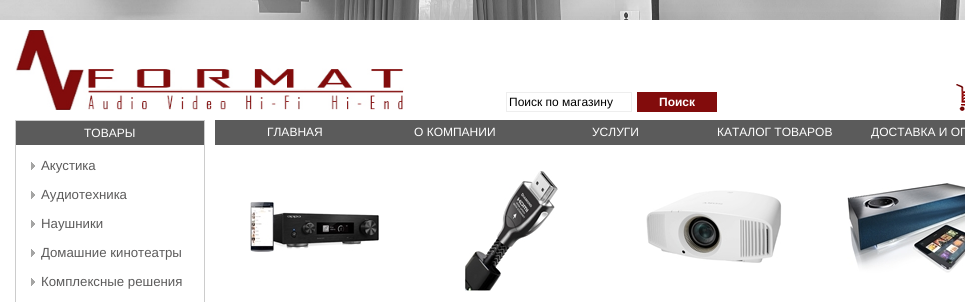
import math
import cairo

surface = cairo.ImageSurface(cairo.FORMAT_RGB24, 965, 302)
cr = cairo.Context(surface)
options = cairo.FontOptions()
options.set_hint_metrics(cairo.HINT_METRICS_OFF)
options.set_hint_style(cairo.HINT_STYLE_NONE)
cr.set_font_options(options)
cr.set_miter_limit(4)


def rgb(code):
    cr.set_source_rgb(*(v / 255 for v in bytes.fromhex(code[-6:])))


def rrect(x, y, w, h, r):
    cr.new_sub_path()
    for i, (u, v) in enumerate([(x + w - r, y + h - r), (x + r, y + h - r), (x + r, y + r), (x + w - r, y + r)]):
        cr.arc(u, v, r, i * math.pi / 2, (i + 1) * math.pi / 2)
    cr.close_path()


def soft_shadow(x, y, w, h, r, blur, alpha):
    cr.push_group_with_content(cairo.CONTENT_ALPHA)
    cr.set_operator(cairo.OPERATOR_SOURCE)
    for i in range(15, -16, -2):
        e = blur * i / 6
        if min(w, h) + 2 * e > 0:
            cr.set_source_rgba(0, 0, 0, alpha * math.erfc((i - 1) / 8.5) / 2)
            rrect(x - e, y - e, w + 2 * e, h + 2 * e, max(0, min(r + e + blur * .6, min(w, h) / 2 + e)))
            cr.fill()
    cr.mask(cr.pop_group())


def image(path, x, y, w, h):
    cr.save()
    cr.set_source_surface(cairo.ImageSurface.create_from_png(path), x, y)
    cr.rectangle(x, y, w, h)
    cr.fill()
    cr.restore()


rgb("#ffffff")
cr.paint()
image("img/1.png", 0, 0, 965, 20)
rgb("#000000")
soft_shadow(0, 26, 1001, 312, 0, 12, 0.1)
rgb("#ffffff")
cr.rectangle(0, 20, 965, 282)
cr.fill()
image("img/2.png", 15, 30, 389, 80)
cr.rectangle(506.5, 92.5, 125, 19)
rgb("#eeeeee")
cr.set_line_width(1)
cr.stroke()
rgb("#820c0c")
cr.rectangle(637, 92, 80, 20)
cr.fill()
image("img/3.png", 956, 84, 9, 27)
cr.rectangle(15.5, 120.5, 189, 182)
rgb("#cccccc")
cr.stroke()
rgb("#5b5b5b")
cr.rectangle(16, 121, 188, 24)
cr.fill()
image("img/4.png", 31, 162, 4, 8)
image("img/4.png", 31, 191, 4, 8)
image("img/4.png", 31, 220, 4, 8)
image("img/4.png", 31, 249, 4, 8)
image("img/4.png", 31, 278, 4, 8)
cr.rectangle(215, 120, 750, 25)
cr.fill()
image("img/5.png", 250, 201, 129, 51)
image("img/6.png", 465, 171, 93, 120)
image("img/7.png", 646, 190, 136, 73)
image("img/8.png", 847, 183, 118, 90)
cr.select_font_face("Liberation Sans")
cr.set_font_size(12)
rgb("#000000")
cr.move_to(509, 106)
cr.show_text("Поиск по магазину")
cr.select_font_face("Liberation Sans", cairo.FONT_SLANT_NORMAL, cairo.FONT_WEIGHT_BOLD)
rgb("#ffffff")
cr.move_to(659, 106)
cr.show_text("Поиск")
cr.select_font_face("Liberation Sans")
cr.move_to(84, 137)
cr.show_text("ТОВАРЫ")
cr.set_font_size(13.25)
rgb("#5c5b5b")
for x, y, s in [
    (41, 170, "Акустика"),
    (41, 199, "Аудиотехника"),
    (41, 228, "Наушники"),
    (41, 257, "Домашние кинотеатры"),
    (41, 286, "Комплексные решения"),
]:
    cr.move_to(x, y)
    cr.show_text(s)
cr.set_font_size(12)
rgb("#ffffff")
for x, y, s in [
    (267, 136, "ГЛАВНАЯ"),
    (414, 136, "О КОМПАНИИ"),
    (592, 136, "УСЛУГИ"),
    (717, 136, "КАТАЛОГ ТОВАРОВ"),
    (871, 136, "ДОСТАВКА И ОП"),
]:
    cr.move_to(x, y)
    cr.show_text(s)
surface.write_to_png("page.png")
